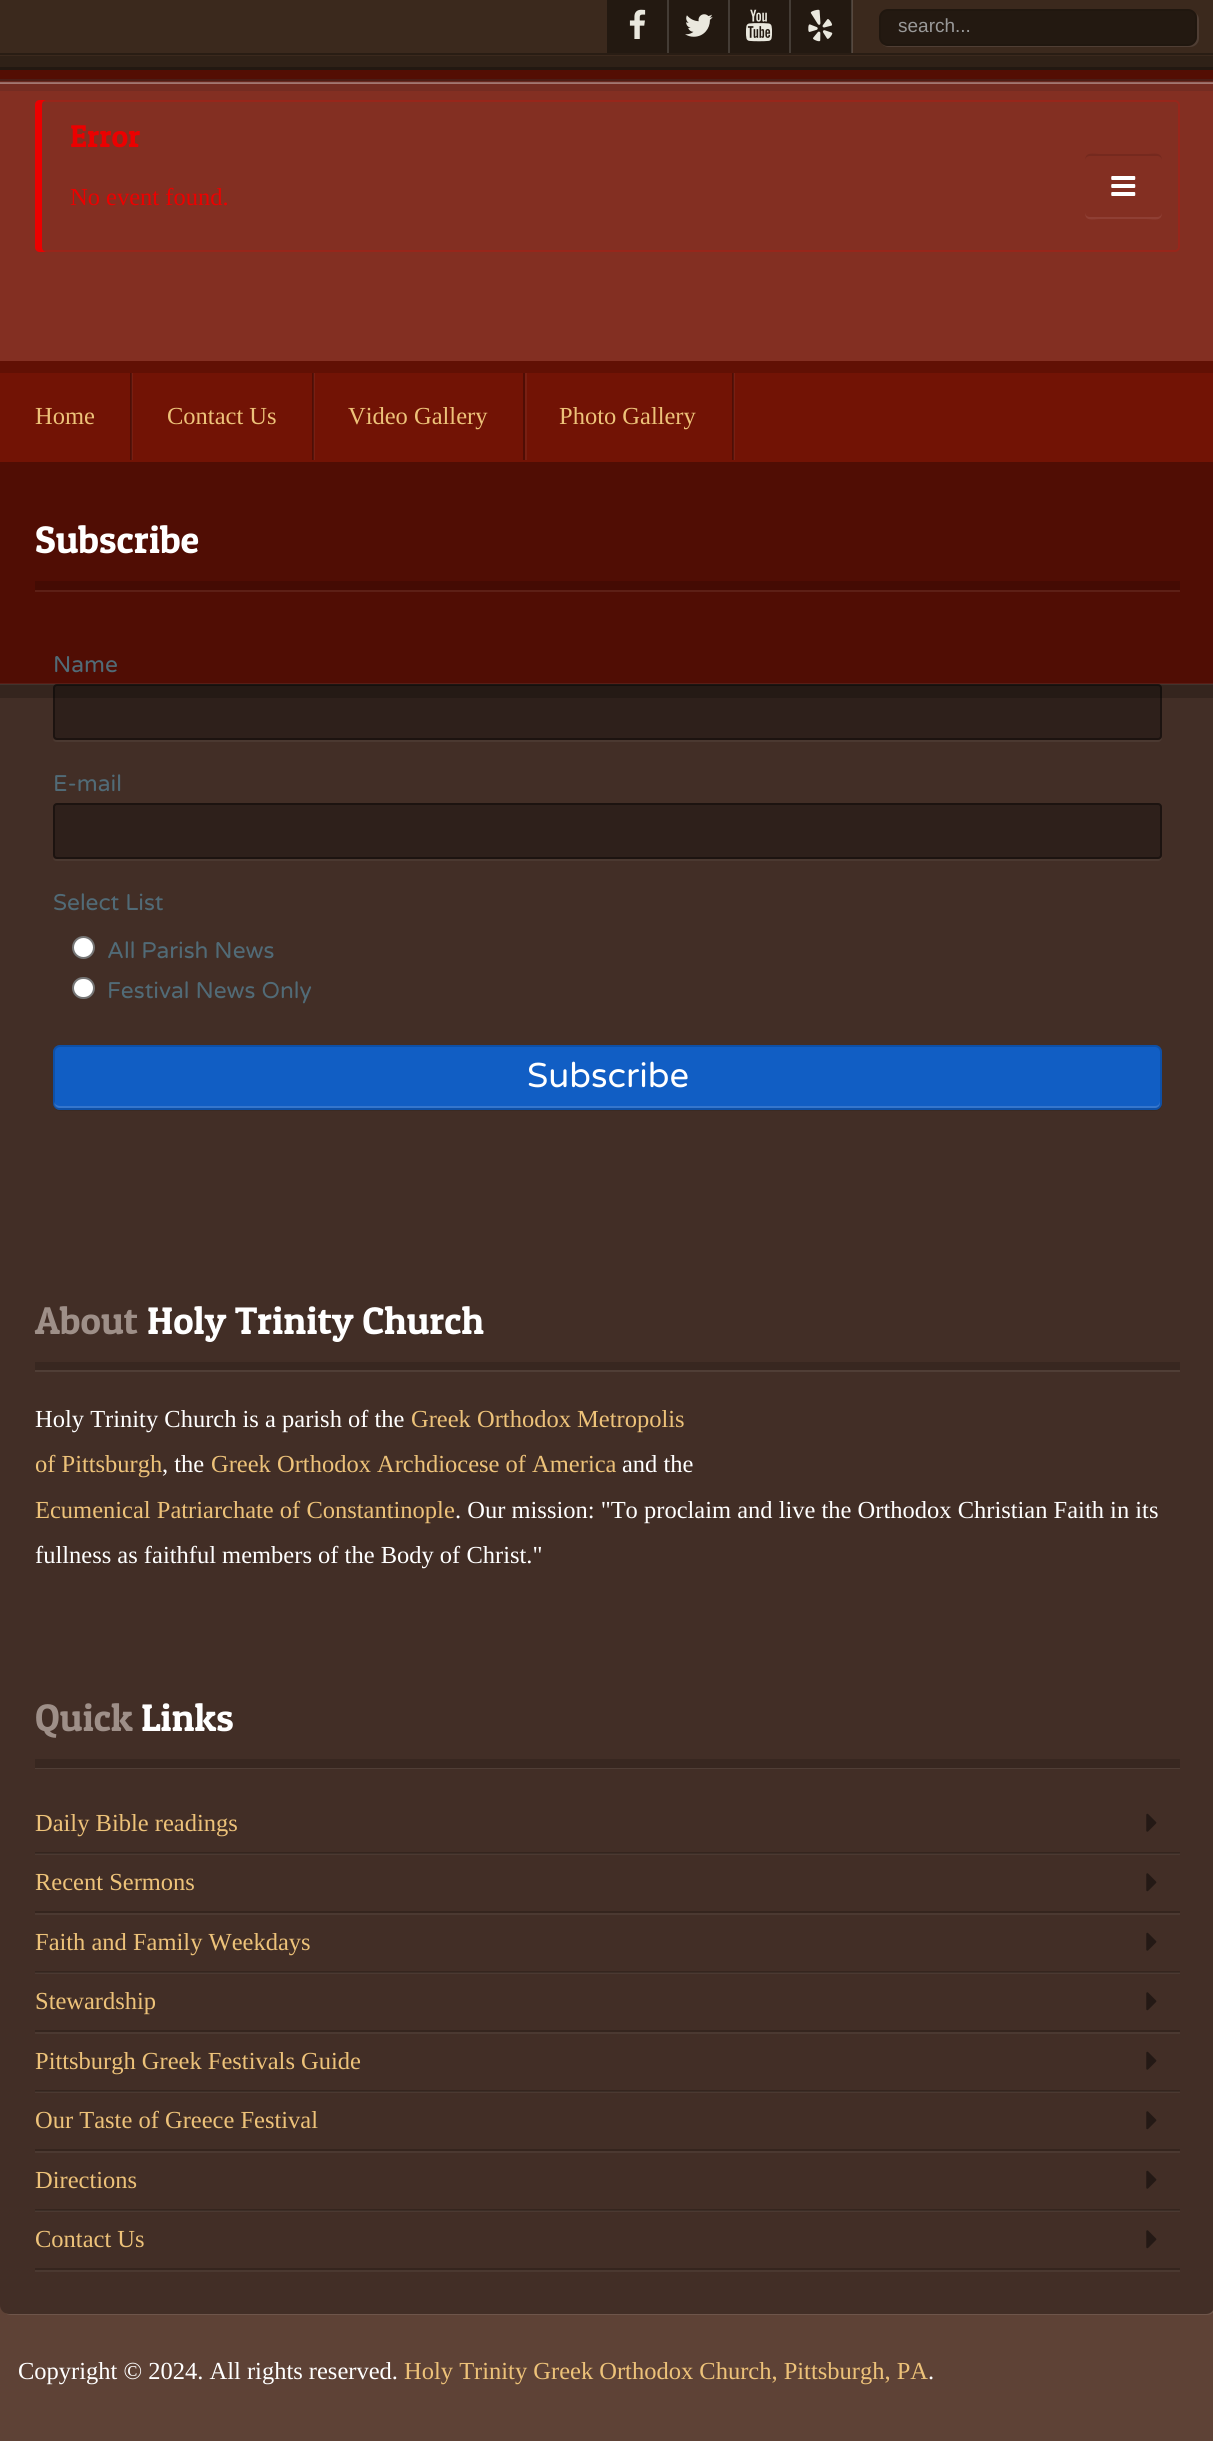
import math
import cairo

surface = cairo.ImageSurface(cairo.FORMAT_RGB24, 1213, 2441)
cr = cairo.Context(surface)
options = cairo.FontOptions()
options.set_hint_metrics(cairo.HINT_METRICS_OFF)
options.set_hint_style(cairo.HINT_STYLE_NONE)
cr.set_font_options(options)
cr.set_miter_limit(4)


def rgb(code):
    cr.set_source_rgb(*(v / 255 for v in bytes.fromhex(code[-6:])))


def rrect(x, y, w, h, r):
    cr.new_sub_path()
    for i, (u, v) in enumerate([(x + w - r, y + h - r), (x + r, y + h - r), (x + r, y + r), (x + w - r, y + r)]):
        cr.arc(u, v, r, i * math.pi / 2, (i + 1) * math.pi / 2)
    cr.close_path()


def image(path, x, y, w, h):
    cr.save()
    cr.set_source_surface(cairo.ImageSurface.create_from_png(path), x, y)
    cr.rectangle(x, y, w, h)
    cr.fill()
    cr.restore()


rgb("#3b291d")
cr.paint()
rgb("#58493f")
cr.rectangle(852, 0, 1, 53)
cr.fill()
cr.set_source_rgba(0, 0, 0, 0.3)
cr.rectangle(0, 53, 1213, 2)
cr.fill()
rgb("#231911")
cr.rectangle(607, 0, 60, 53)
cr.fill()
rgb("#443c35")
cr.rectangle(667, 0, 2, 53)
cr.fill()
image("img/1.png", 629, 9, 17, 30)
rgb("#231911")
cr.rectangle(669, 0, 59, 53)
cr.fill()
rgb("#443c35")
cr.rectangle(728, 0, 2, 53)
cr.fill()
image("img/2.png", 685, 14, 28, 23)
rgb("#231911")
cr.rectangle(730, 0, 59, 53)
cr.fill()
rgb("#443c35")
cr.rectangle(789, 0, 2, 53)
cr.fill()
image("img/3.png", 746, 9, 26, 33)
rgb("#231911")
cr.rectangle(791, 0, 60, 53)
cr.fill()
rgb("#443c35")
cr.rectangle(851, 0, 1, 53)
cr.fill()
image("img/4.png", 808, 9, 25, 33)
rgb("#4f3e34")
cr.new_path()
cr.move_to(882, 44)
cr.curve_to(884, 46, 886, 47, 889, 47)
cr.line_to(1190, 47)
cr.curve_to(1195, 47, 1199, 43, 1199, 38)
cr.line_to(1199, 20)
cr.curve_to(1199, 17, 1198, 15, 1196, 13)
cr.curve_to(1197, 14, 1197, 16, 1197, 18)
cr.line_to(1197, 37)
cr.curve_to(1197, 42, 1193, 46, 1188, 46)
cr.line_to(887, 46)
cr.curve_to(885, 46, 884, 45, 882, 44)
cr.close_path()
cr.fill()
cr.set_source_rgba(0, 0, 0, 0.4)
rrect(879, 9, 318, 37, 9)
cr.fill()
rrect(880, 10, 316, 35, 8)
cr.set_source_rgba(0, 0, 0, 0.1)
cr.stroke()
rgb("#5e4236")
cr.rectangle(0, 684, 1213, 1757)
cr.fill()
cr.rectangle(-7, 63, 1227, 628)
cr.set_source_rgba(0, 0, 0, 0.2)
cr.set_line_width(14)
cr.stroke()
rgb("#721305")
cr.rectangle(0, 70, 1213, 614)
cr.fill()
rgb("#500d04")
cr.rectangle(732, 373, 1, 87)
cr.rectangle(312, 373, 1, 87)
cr.rectangle(130, 373, 1, 87)
cr.fill()
cr.set_source_rgba(1, 1, 1, 0.1)
cr.rectangle(0, 683, 1213, 2)
cr.fill()
cr.set_source_rgba(0, 0, 0, 0.15)
cr.rectangle(0, 67, 1213, 24)
cr.fill()
cr.rectangle(-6, 73, 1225, 294)
cr.set_line_width(12)
cr.stroke()
cr.set_source_rgba(1, 1, 1, 0.12)
cr.rectangle(0, 81, 1213, 280)
cr.fill()
rgb("#4b1d16")
cr.rectangle(0, 79, 1213, 2)
cr.fill()
rgb("#a57670")
cr.rectangle(0, 82, 1213, 2)
cr.fill()
cr.set_source_rgba(0, 0, 0, 0.1)
cr.rectangle(0, 81, 1213, 2)
cr.fill()
rgb("#ec0000")
cr.new_path()
cr.move_to(40, 100)
cr.curve_to(37, 100, 35, 102, 35, 105)
cr.line_to(35, 247)
cr.curve_to(35, 250, 37, 252, 40, 252)
cr.line_to(47, 252)
cr.curve_to(44, 252, 42, 250, 42, 247)
cr.line_to(42, 105)
cr.curve_to(42, 102, 44, 100, 47, 100)
cr.close_path()
cr.fill()
rrect(36, 101, 1143, 150, 4)
cr.set_source_rgba(0.925, 0, 0, 0.2)
cr.set_line_width(2)
cr.stroke()
rgb("#8f3f34")
cr.new_path()
cr.move_to(1085, 212)
cr.curve_to(1085, 222, 1092, 219, 1101, 219)
cr.line_to(1146, 219)
cr.curve_to(1155, 219, 1162, 222, 1162, 212)
cr.curve_to(1162, 215, 1160, 217, 1157, 217)
cr.line_to(1090, 217)
cr.curve_to(1087, 217, 1085, 215, 1085, 212)
cr.close_path()
cr.fill()
rgb("#75291e")
cr.new_path()
cr.move_to(1090, 156)
cr.line_to(1157, 156)
cr.curve_to(1160, 156, 1162, 158, 1162, 161)
cr.curve_to(1162, 151, 1154, 154, 1146, 154)
cr.line_to(1101, 154)
cr.curve_to(1093, 154, 1085, 151, 1085, 161)
cr.curve_to(1085, 158, 1087, 156, 1090, 156)
cr.close_path()
cr.fill()
image("img/5.png", 1111, 176, 25, 20)
for x, y, w, h, color in [
    (132, 373, 1, 87, "#791f12"),
    (131, 373, 1, 87, "#55160d"),
    (314, 373, 1, 87, "#791f12"),
    (313, 373, 1, 87, "#55160d"),
    (525, 373, 2, 87, "#791f12"),
    (523, 373, 2, 87, "#500d04"),
    (734, 373, 1, 87, "#791f12"),
    (733, 373, 1, 87, "#55160d"),
]:
    rgb(color)
    cr.rectangle(x, y, w, h)
    cr.fill()
rgb("#6e554a")
cr.new_path()
cr.move_to(5, 2313)
cr.curve_to(6, 2314, 9, 2315, 11, 2315)
cr.line_to(1207, 2315)
cr.curve_to(1212, 2315, 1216, 2311, 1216, 2306)
cr.line_to(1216, 464)
cr.line_to(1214, 464)
cr.line_to(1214, 2305)
cr.curve_to(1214, 2310, 1211, 2314, 1206, 2314)
cr.line_to(9, 2314)
cr.close_path()
cr.fill()
cr.set_source_rgba(0, 0, 0, 0.3)
cr.new_path()
cr.move_to(0, 462)
cr.line_to(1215, 462)
cr.line_to(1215, 2305)
cr.curve_to(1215, 2310, 1211, 2314, 1206, 2314)
cr.line_to(9, 2314)
cr.curve_to(4, 2314, 0, 2310, 0, 2305)
cr.close_path()
cr.fill()
rgb("#5d1f16")
cr.new_path()
cr.move_to(35, 590)
cr.line_to(35, 592)
cr.line_to(1180, 592)
cr.line_to(1180, 508)
cr.line_to(1180, 590)
cr.close_path()
cr.fill()
rgb("#440b03")
cr.rectangle(35, 581, 1145, 9)
cr.fill()
rgb("#4b3931")
cr.new_path()
cr.move_to(53, 739)
cr.curve_to(53, 741, 55, 742, 57, 742)
cr.line_to(1158, 742)
cr.curve_to(1160, 742, 1162, 740, 1162, 738)
cr.line_to(1162, 737)
cr.curve_to(1162, 739, 1160, 740, 1158, 740)
cr.line_to(56, 740)
cr.curve_to(55, 740, 54, 740, 53, 739)
cr.close_path()
cr.fill()
cr.set_source_rgba(0, 0, 0, 0.3)
rrect(53, 684, 1109, 56, 4)
cr.fill()
rrect(54, 685, 1107, 54, 3)
cr.set_source_rgba(0, 0, 0, 0.4)
cr.stroke()
rgb("#4b3931")
cr.new_path()
cr.move_to(53, 858)
cr.curve_to(53, 860, 55, 861, 57, 861)
cr.line_to(1158, 861)
cr.curve_to(1160, 861, 1162, 859, 1162, 857)
cr.line_to(1162, 856)
cr.curve_to(1162, 858, 1160, 859, 1158, 859)
cr.line_to(56, 859)
cr.curve_to(55, 859, 54, 859, 53, 858)
cr.close_path()
cr.fill()
cr.set_source_rgba(0, 0, 0, 0.3)
rrect(53, 803, 1109, 56, 4)
cr.fill()
rrect(54, 804, 1107, 54, 3)
cr.set_source_rgba(0, 0, 0, 0.4)
cr.stroke()
rgb("#ffffff")
cr.arc(83.5, 947.5, 10.5, 0, 2 * math.pi)
cr.fill_preserve()
rgb("#767676")
cr.stroke()
rgb("#ffffff")
rrect(73, 978, 21, 20, 10)
cr.fill_preserve()
rgb("#767676")
cr.stroke()
rgb("#3b2a22")
cr.new_path()
cr.move_to(53, 1105)
cr.curve_to(54, 1109, 57, 1111, 60, 1111)
cr.line_to(1155, 1111)
cr.curve_to(1159, 1111, 1162, 1108, 1162, 1104)
cr.line_to(1162, 1102)
cr.curve_to(1162, 1106, 1159, 1110, 1155, 1110)
cr.line_to(60, 1110)
cr.curve_to(57, 1110, 54, 1108, 53, 1105)
cr.close_path()
cr.fill()
rgb("#115ec4")
rrect(53, 1045, 1109, 65, 7)
cr.fill()
rgb("#3576cd")
cr.new_path()
cr.move_to(54, 1101)
cr.line_to(54, 1103)
cr.curve_to(54, 1106, 56, 1108, 59, 1108)
cr.line_to(1155, 1108)
cr.curve_to(1158, 1108, 1160, 1106, 1160, 1103)
cr.line_to(1160, 1101)
cr.curve_to(1160, 1104, 1158, 1106, 1155, 1106)
cr.line_to(60, 1106)
cr.curve_to(57, 1106, 54, 1104, 54, 1101)
cr.close_path()
cr.fill()
rrect(54, 1046, 1107, 63, 6)
cr.set_source_rgba(0, 0, 0, 0.15)
cr.stroke()
rgb("#503e36")
cr.new_path()
cr.move_to(35, 1370)
cr.line_to(35, 1372)
cr.line_to(1180, 1372)
cr.line_to(1180, 1288)
cr.line_to(1180, 1370)
cr.close_path()
cr.fill()
rgb("#382720")
cr.rectangle(35, 1362, 1145, 8)
cr.fill()
rgb("#503e36")
cr.new_path()
cr.move_to(35, 1768)
cr.line_to(35, 1769)
cr.line_to(1180, 1769)
cr.line_to(1180, 1685)
cr.line_to(1180, 1768)
cr.close_path()
cr.fill()
rgb("#382720")
cr.rectangle(35, 1759, 1145, 9)
cr.fill()
rgb("#4b3931")
cr.new_path()
cr.move_to(35, 1853)
cr.line_to(35, 1855)
cr.line_to(1180, 1855)
cr.line_to(1180, 1796)
cr.line_to(1180, 1853)
cr.close_path()
cr.fill()
cr.set_source_rgba(0, 0, 0, 0.2)
cr.rectangle(35, 1852, 1145, 2)
cr.fill()
image("img/6.png", 1146, 1813, 11, 19)
rgb("#4b3931")
cr.new_path()
cr.move_to(35, 1913)
cr.line_to(35, 1915)
cr.line_to(1180, 1915)
cr.line_to(1180, 1855)
cr.line_to(1180, 1913)
cr.close_path()
cr.fill()
rgb("#35251e")
cr.rectangle(35, 1911, 1145, 2)
cr.fill()
image("img/7.png", 1146, 1873, 11, 19)
rgb("#4b3931")
cr.new_path()
cr.move_to(35, 1972)
cr.line_to(35, 1974)
cr.line_to(1180, 1974)
cr.line_to(1180, 1915)
cr.line_to(1180, 1972)
cr.close_path()
cr.fill()
cr.set_source_rgba(0, 0, 0, 0.2)
cr.rectangle(35, 1971, 1145, 2)
cr.fill()
image("img/6.png", 1146, 1932, 11, 19)
rgb("#4b3931")
cr.new_path()
cr.move_to(35, 2032)
cr.line_to(35, 2034)
cr.line_to(1180, 2034)
cr.line_to(1180, 1974)
cr.line_to(1180, 2032)
cr.close_path()
cr.fill()
rgb("#35251e")
cr.rectangle(35, 2030, 1145, 2)
cr.fill()
image("img/7.png", 1146, 1992, 11, 19)
rgb("#4b3931")
cr.new_path()
cr.move_to(35, 2091)
cr.line_to(35, 2093)
cr.line_to(1180, 2093)
cr.line_to(1180, 2034)
cr.line_to(1180, 2091)
cr.close_path()
cr.fill()
cr.set_source_rgba(0, 0, 0, 0.2)
cr.rectangle(35, 2090, 1145, 2)
cr.fill()
image("img/6.png", 1146, 2051, 11, 19)
rgb("#4b3931")
cr.new_path()
cr.move_to(35, 2151)
cr.line_to(35, 2153)
cr.line_to(1180, 2153)
cr.line_to(1180, 2093)
cr.line_to(1180, 2151)
cr.close_path()
cr.fill()
rgb("#35251e")
cr.rectangle(35, 2149, 1145, 2)
cr.fill()
image("img/8.png", 1146, 2111, 11, 19)
rgb("#4b3931")
cr.new_path()
cr.move_to(35, 2210)
cr.line_to(35, 2212)
cr.line_to(1180, 2212)
cr.line_to(1180, 2153)
cr.line_to(1180, 2210)
cr.close_path()
cr.fill()
cr.set_source_rgba(0, 0, 0, 0.2)
cr.rectangle(35, 2209, 1145, 2)
cr.fill()
image("img/6.png", 1146, 2170, 11, 19)
rgb("#4b3931")
cr.new_path()
cr.move_to(35, 2270)
cr.line_to(35, 2272)
cr.line_to(1180, 2272)
cr.line_to(1180, 2212)
cr.line_to(1180, 2270)
cr.close_path()
cr.fill()
rgb("#35251e")
cr.rectangle(35, 2268, 1145, 2)
cr.fill()
image("img/8.png", 1146, 2230, 11, 19)
cr.select_font_face("Liberation Sans")
cr.set_font_size(19)
rgb("#999999")
cr.move_to(898, 32)
cr.show_text("search...")
cr.select_font_face("Patua One")
cr.set_font_size(31.5)
rgb("#ec0000")
cr.move_to(70, 147)
cr.show_text("Error")
cr.select_font_face("Liberation Serif")
cr.set_font_size(24.5)
cr.move_to(70, 205)
cr.show_text("No event found.")
rgb("#edc279")
for x, y, s in [
    (35, 424, "Home"),
    (167, 424, "Contact Us"),
    (348, 424, "Video Gallery"),
    (559, 424, "Photo Gallery"),
]:
    cr.move_to(x, y)
    cr.show_text(s)
cr.select_font_face("Patua One")
cr.set_font_size(38.5)
rgb("#ffffff")
cr.move_to(35, 553)
cr.show_text("Subscribe")
cr.select_font_face("Varela Round")
cr.set_font_size(22.75)
rgb("#516b77")
for x, y, s in [
    (53, 672, "Name"),
    (53, 791, "E-mail"),
    (53, 910, "Select List"),
    (107, 958, "All Parish News"),
    (107, 998, "Festival News Only"),
]:
    cr.move_to(x, y)
    cr.show_text(s)
cr.set_font_size(34.5)
rgb("#ffffff")
cr.move_to(527, 1087)
cr.show_text("Subscribe")
cr.select_font_face("Patua One")
cr.set_font_size(38.5)
rgb("#9e8f88")
cr.move_to(35, 1334)
cr.show_text("About")
rgb("#ffffff")
cr.move_to(147, 1334)
cr.show_text("Holy Trinity Church")
cr.select_font_face("Liberation Serif")
cr.set_font_size(24.5)
cr.move_to(35, 1427)
cr.show_text("Holy Trinity Church is a parish of the")
rgb("#edc279")
cr.move_to(411, 1427)
cr.show_text("Greek Orthodox Metropolis")
cr.move_to(35, 1472)
cr.show_text("of Pittsburgh")
rgb("#ffffff")
cr.move_to(162, 1472)
cr.show_text(", the")
rgb("#edc279")
cr.move_to(211, 1472)
cr.show_text("Greek Orthodox Archdiocese of America")
rgb("#ffffff")
cr.move_to(622, 1472)
cr.show_text("and the")
rgb("#edc279")
cr.move_to(35, 1518)
cr.show_text("Ecumenical Patriarchate of Constantinople")
rgb("#ffffff")
cr.move_to(455, 1518)
cr.show_text(". Our mission: \"To proclaim and live the Orthodox Christian Faith in its")
cr.move_to(35, 1563)
cr.show_text("fullness as faithful members of the Body of Christ.\"")
cr.select_font_face("Patua One")
cr.set_font_size(38.5)
rgb("#9e8f88")
cr.move_to(35, 1731)
cr.show_text("Quick")
rgb("#ffffff")
cr.move_to(141, 1731)
cr.show_text("Links")
cr.select_font_face("Liberation Serif")
cr.set_font_size(24.5)
rgb("#edc279")
for x, y, s in [
    (35, 1831, "Daily Bible readings"),
    (35, 1890, "Recent Sermons"),
    (35, 1950, "Faith and Family Weekdays"),
    (35, 2009, "Stewardship"),
    (35, 2069, "Pittsburgh Greek Festivals Guide"),
    (35, 2128, "Our Taste of Greece Festival"),
    (35, 2188, "Directions"),
    (35, 2247, "Contact Us"),
]:
    cr.move_to(x, y)
    cr.show_text(s)
rgb("#ffffff")
cr.move_to(18, 2379)
cr.show_text("Copyright © 2024. All rights reserved.")
rgb("#edc279")
cr.move_to(404, 2379)
cr.show_text("Holy Trinity Greek Orthodox Church, Pittsburgh, PA")
rgb("#ffffff")
cr.move_to(928, 2379)
cr.show_text(".")
surface.write_to_png("page.png")
